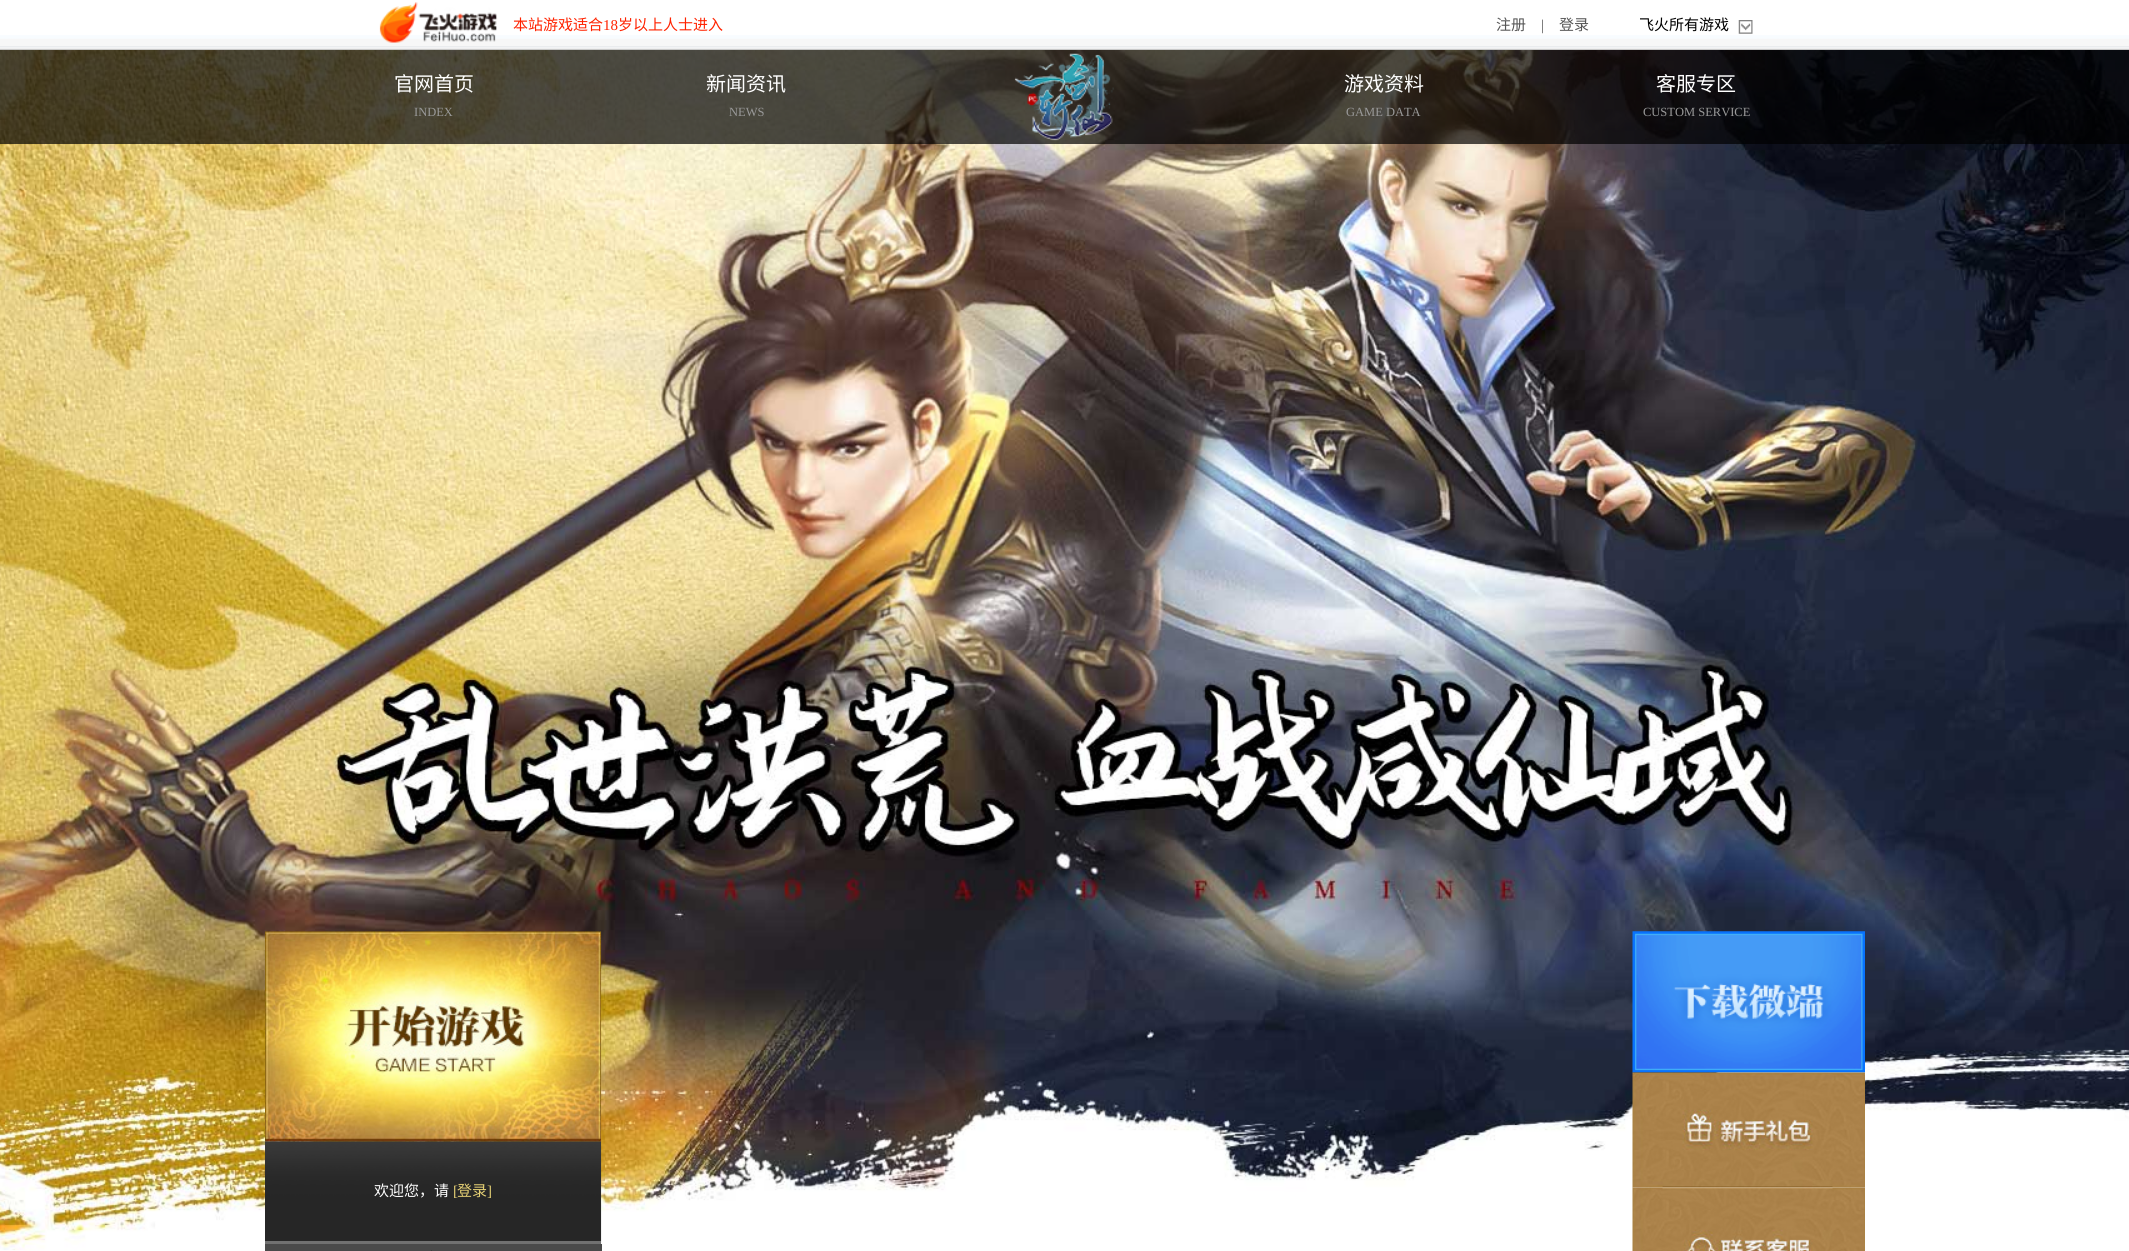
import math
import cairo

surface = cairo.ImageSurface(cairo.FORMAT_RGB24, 2129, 1251)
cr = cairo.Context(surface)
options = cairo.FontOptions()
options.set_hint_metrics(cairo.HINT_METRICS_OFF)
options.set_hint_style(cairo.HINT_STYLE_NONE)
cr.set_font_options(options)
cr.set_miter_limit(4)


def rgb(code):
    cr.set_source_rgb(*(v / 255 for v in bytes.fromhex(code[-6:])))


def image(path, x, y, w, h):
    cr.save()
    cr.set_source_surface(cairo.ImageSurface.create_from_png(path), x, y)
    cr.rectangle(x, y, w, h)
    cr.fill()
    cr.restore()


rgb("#ffffff")
cr.paint()
image("img/1.png", 0, 35, 2129, 15)
image("img/2.png", 379, 2, 119, 41)
image("img/3.png", 1738, 20, 15, 14)
image("img/5.png", 0, 50, 2129, 1201)
cr.set_source_rgba(0, 0, 0, 0.7)
cr.rectangle(0, 50, 2129, 94)
cr.fill()
image("img/4.png", 1014, 53, 100, 88)
image("img/7.png", 265, 1141, 337, 103)
image("img/6.png", 265, 931, 337, 211)
for x, y, w, h, color in [
    (265, 1241, 336, 3, "#717171"),
    (265, 1244, 337, 7, "#4a4a4a"),
    (431, 1250, 1, 1, "#3c3c3c"),
]:
    rgb(color)
    cr.rectangle(x, y, w, h)
    cr.fill()
image("img/8.png", 1632, 931, 233, 142)
image("img/9.png", 1632, 1072, 233, 116)
image("img/10.png", 1632, 1187, 233, 64)
cr.select_font_face("Noto Sans CJK SC")
cr.set_font_size(15)
rgb("#ff2200")
cr.move_to(513, 30)
cr.show_text("本站游戏适合")
cr.select_font_face("Liberation Serif")
cr.move_to(603, 30)
cr.show_text("18")
cr.select_font_face("Noto Sans CJK SC")
cr.move_to(618, 30)
cr.show_text("岁以上人士进入")
rgb("#555555")
cr.move_to(1496, 30)
cr.show_text("注册")
cr.select_font_face("Liberation Serif")
cr.move_to(1541, 30)
cr.show_text("|")
cr.select_font_face("Noto Sans CJK SC")
cr.move_to(1559, 30)
cr.show_text("登录")
rgb("#000000")
cr.move_to(1639, 30)
cr.show_text("飞火所有游戏")
cr.set_font_size(20)
rgb("#ffffff")
cr.move_to(394, 91)
cr.show_text("官网首页")
cr.select_font_face("Liberation Serif")
cr.set_font_size(12.5)
rgb("#999999")
cr.move_to(414, 116)
cr.show_text("INDEX")
cr.select_font_face("Noto Sans CJK SC")
cr.set_font_size(20)
rgb("#ffffff")
cr.move_to(706, 91)
cr.show_text("新闻资讯")
cr.select_font_face("Liberation Serif")
cr.set_font_size(12.5)
rgb("#999999")
cr.move_to(729, 116)
cr.show_text("NEWS")
cr.select_font_face("Noto Sans CJK SC")
cr.set_font_size(20)
rgb("#ffffff")
cr.move_to(1344, 91)
cr.show_text("游戏资料")
cr.select_font_face("Liberation Serif")
cr.set_font_size(12.5)
rgb("#999999")
cr.move_to(1346, 116)
cr.show_text("GAME DATA")
cr.select_font_face("Noto Sans CJK SC")
cr.set_font_size(20)
rgb("#ffffff")
cr.move_to(1656, 91)
cr.show_text("客服专区")
cr.select_font_face("Liberation Serif")
cr.set_font_size(12.5)
rgb("#999999")
cr.move_to(1643, 116)
cr.show_text("CUSTOM SERVICE")
cr.select_font_face("Noto Sans CJK SC")
cr.set_font_size(15)
rgb("#ffffff")
cr.move_to(374, 1196)
cr.show_text("欢迎您，请")
cr.select_font_face("Liberation Serif")
rgb("#e4cf74")
cr.move_to(453, 1196)
cr.show_text("[")
cr.select_font_face("Noto Sans CJK SC")
cr.move_to(457, 1196)
cr.show_text("登录")
cr.select_font_face("Liberation Serif")
cr.move_to(487, 1196)
cr.show_text("]")
surface.write_to_png("page.png")
